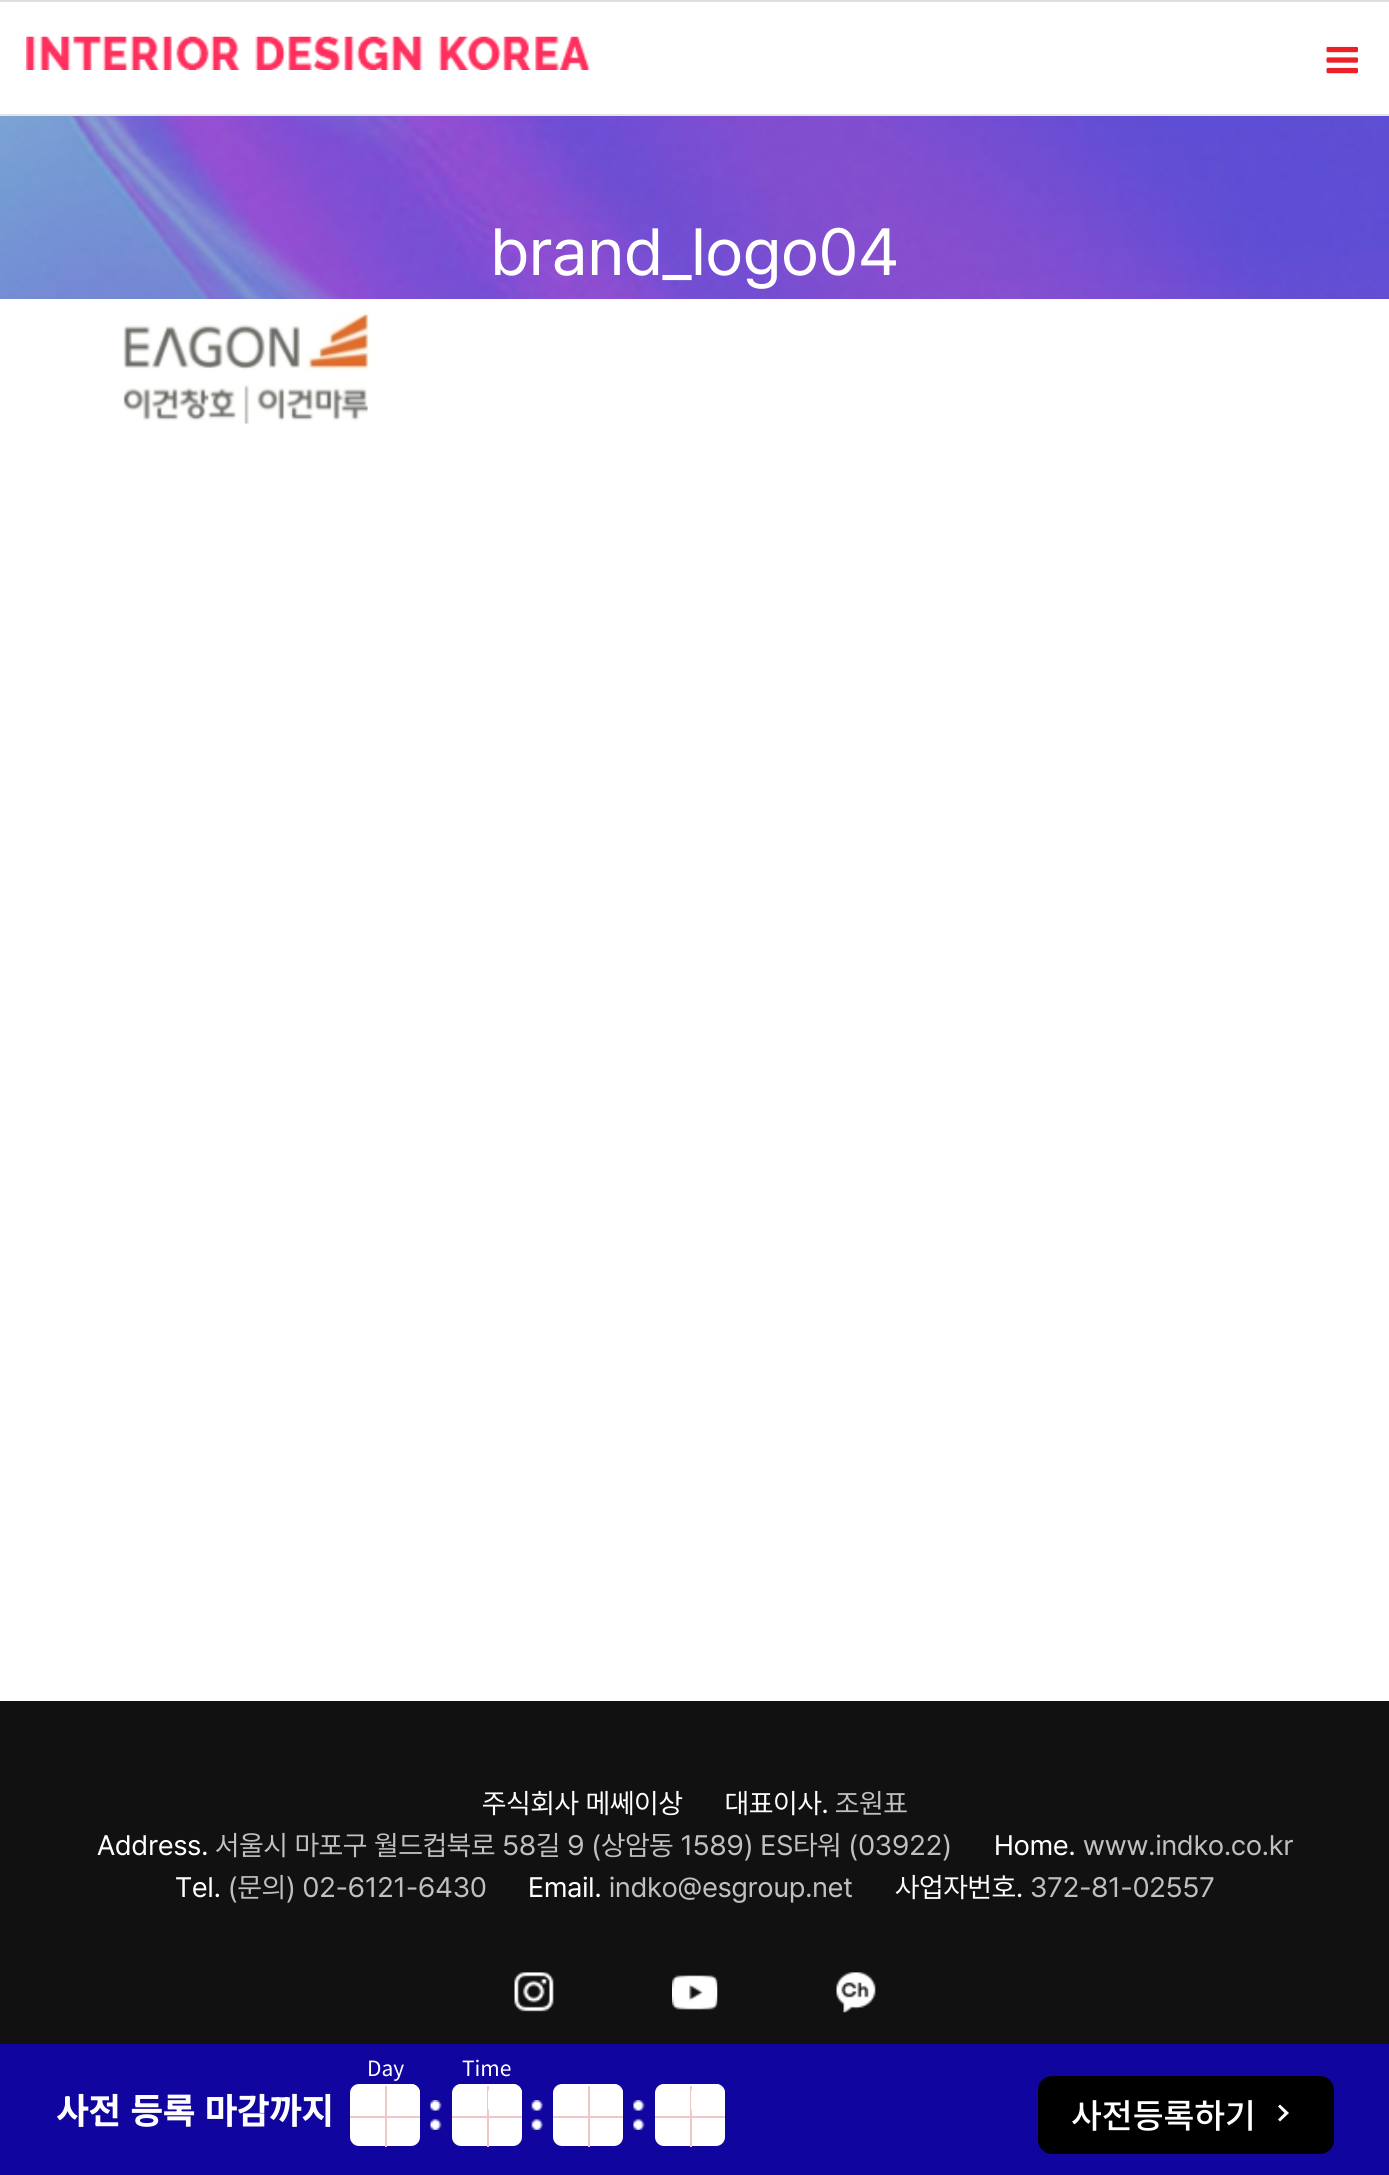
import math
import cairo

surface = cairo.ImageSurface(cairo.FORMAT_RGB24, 1389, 2175)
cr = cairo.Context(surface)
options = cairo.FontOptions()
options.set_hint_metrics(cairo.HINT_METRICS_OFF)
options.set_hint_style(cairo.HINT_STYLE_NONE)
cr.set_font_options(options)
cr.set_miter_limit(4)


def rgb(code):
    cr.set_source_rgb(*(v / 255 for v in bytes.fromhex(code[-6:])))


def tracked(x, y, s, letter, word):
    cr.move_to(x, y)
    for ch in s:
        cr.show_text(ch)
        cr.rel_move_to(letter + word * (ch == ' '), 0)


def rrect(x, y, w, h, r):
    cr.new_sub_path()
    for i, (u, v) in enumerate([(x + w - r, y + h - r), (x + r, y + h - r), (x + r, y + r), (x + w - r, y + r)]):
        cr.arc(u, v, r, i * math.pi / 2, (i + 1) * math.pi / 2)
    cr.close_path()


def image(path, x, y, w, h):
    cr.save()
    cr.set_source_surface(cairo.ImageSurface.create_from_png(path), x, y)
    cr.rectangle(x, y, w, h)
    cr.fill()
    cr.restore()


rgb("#ffffff")
cr.paint()
rgb("#dedede")
cr.rectangle(0, 0, 1389, 2)
cr.fill()
rgb("#e5e5e5")
cr.rectangle(0, 114, 1389, 2)
cr.fill()
image("img/1.png", 26, 36, 564, 34)
image("img/2.png", 1326, 46, 32, 28)
image("img/3.png", 0, 116, 1389, 183)
image("img/4.png", 123, 312, 247, 112)
rgb("#111111")
cr.rectangle(0, 1701, 1389, 343)
cr.fill()
image("img/5.png", 514, 1972, 40, 40)
image("img/6.png", 672, 1975, 46, 35)
image("img/7.png", 836, 1972, 40, 41)
rgb("#10069f")
cr.rectangle(0, 2044, 1389, 131)
cr.fill()
rgb("#ffffff")
rrect(350, 2084, 70, 62, 9)
cr.fill()
rrect(352, 2084, 33, 32, 9)
cr.fill()
rgb("#eec8c7")
cr.rectangle(385, 2086, 2, 61)
cr.fill()
rgb("#ffffff")
rrect(387, 2084, 33, 32, 9)
cr.fill()
rgb("#eec8c7")
cr.rectangle(350, 2116, 70, 2)
cr.fill()
rgb("#ffffff")
rrect(452, 2084, 70, 62, 9)
cr.fill()
rrect(453, 2084, 34, 32, 9)
cr.fill()
rgb("#eec8c7")
cr.rectangle(487, 2086, 2, 61)
cr.fill()
rgb("#ffffff")
rrect(488, 2084, 34, 32, 9)
cr.fill()
rgb("#eec8c7")
cr.rectangle(452, 2116, 70, 2)
cr.fill()
image("img/8.png", 430, 2100, 12, 30)
image("img/9.png", 531, 2100, 12, 30)
rgb("#ffffff")
rrect(553, 2084, 70, 62, 9)
cr.fill()
rrect(555, 2084, 33, 32, 9)
cr.fill()
rgb("#eec8c7")
cr.rectangle(588, 2086, 2, 61)
cr.fill()
rgb("#ffffff")
rrect(590, 2084, 33, 32, 9)
cr.fill()
rgb("#eec8c7")
cr.rectangle(553, 2116, 70, 2)
cr.fill()
image("img/10.png", 633, 2100, 12, 30)
rgb("#ffffff")
rrect(655, 2084, 70, 62, 9)
cr.fill()
rrect(656, 2084, 34, 32, 9)
cr.fill()
rgb("#eec8c7")
cr.rectangle(690, 2086, 2, 61)
cr.fill()
rgb("#ffffff")
rrect(691, 2084, 34, 32, 9)
cr.fill()
rgb("#eec8c7")
cr.rectangle(655, 2116, 70, 2)
cr.fill()
rgb("#000000")
rrect(1038, 2076, 296, 78, 14)
cr.fill()
rgb("#ffffff")
cr.new_path()
cr.move_to(1284.5, 2113)
cr.line_to(1278, 2106.5)
cr.line_to(1280, 2104.5)
cr.line_to(1289, 2113)
cr.line_to(1280, 2121.5)
cr.line_to(1278, 2119.5)
cr.close_path()
cr.fill()
cr.select_font_face("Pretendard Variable")
cr.set_font_size(66)
cr.move_to(490, 275)
cr.show_text("brand_logo04")
cr.set_font_size(28)
cr.move_to(482, 1813)
cr.show_text("주식회사 메쎄이상      대표이사.")
rgb("#c0c0c0")
cr.move_to(835, 1813)
cr.show_text("조원표")
rgb("#ffffff")
cr.move_to(97, 1855)
cr.show_text("Address.")
rgb("#c0c0c0")
cr.move_to(215, 1855)
cr.show_text("서울시 마포구 월드컵북로 58길 9 (상암동 1589) ES타워 (03922)")
rgb("#ffffff")
cr.move_to(994, 1855)
cr.show_text("Home.")
rgb("#c0c0c0")
cr.move_to(1083, 1855)
cr.show_text("www.indko.co.kr")
rgb("#ffffff")
cr.move_to(175, 1897)
cr.show_text("Tel.")
rgb("#c0c0c0")
cr.move_to(228, 1897)
cr.show_text("(문의) 02-6121-6430")
rgb("#ffffff")
cr.move_to(528, 1897)
cr.show_text("Email.")
rgb("#c0c0c0")
cr.move_to(609, 1897)
cr.show_text("indko@esgroup.net")
rgb("#ffffff")
cr.move_to(895, 1897)
cr.show_text("사업자번호.")
rgb("#c0c0c0")
cr.move_to(1030, 1897)
cr.show_text("372-81-02557")
cr.select_font_face("Noto Sans KR")
cr.set_font_size(21)
rgb("#ffffff")
cr.move_to(367, 2076)
cr.show_text("Day")
cr.move_to(462, 2076)
cr.show_text("Time")
cr.select_font_face("Noto Sans KR", cairo.FONT_SLANT_NORMAL, cairo.FONT_WEIGHT_BOLD)
cr.set_font_size(35)
tracked(56, 2124, "사전 등록 마감까지", 0, 2)
cr.select_font_face("Noto Sans KR Medium")
cr.set_font_size(33.5)
cr.move_to(1071, 2128)
cr.show_text("사전등록하기")
surface.write_to_png("page.png")
